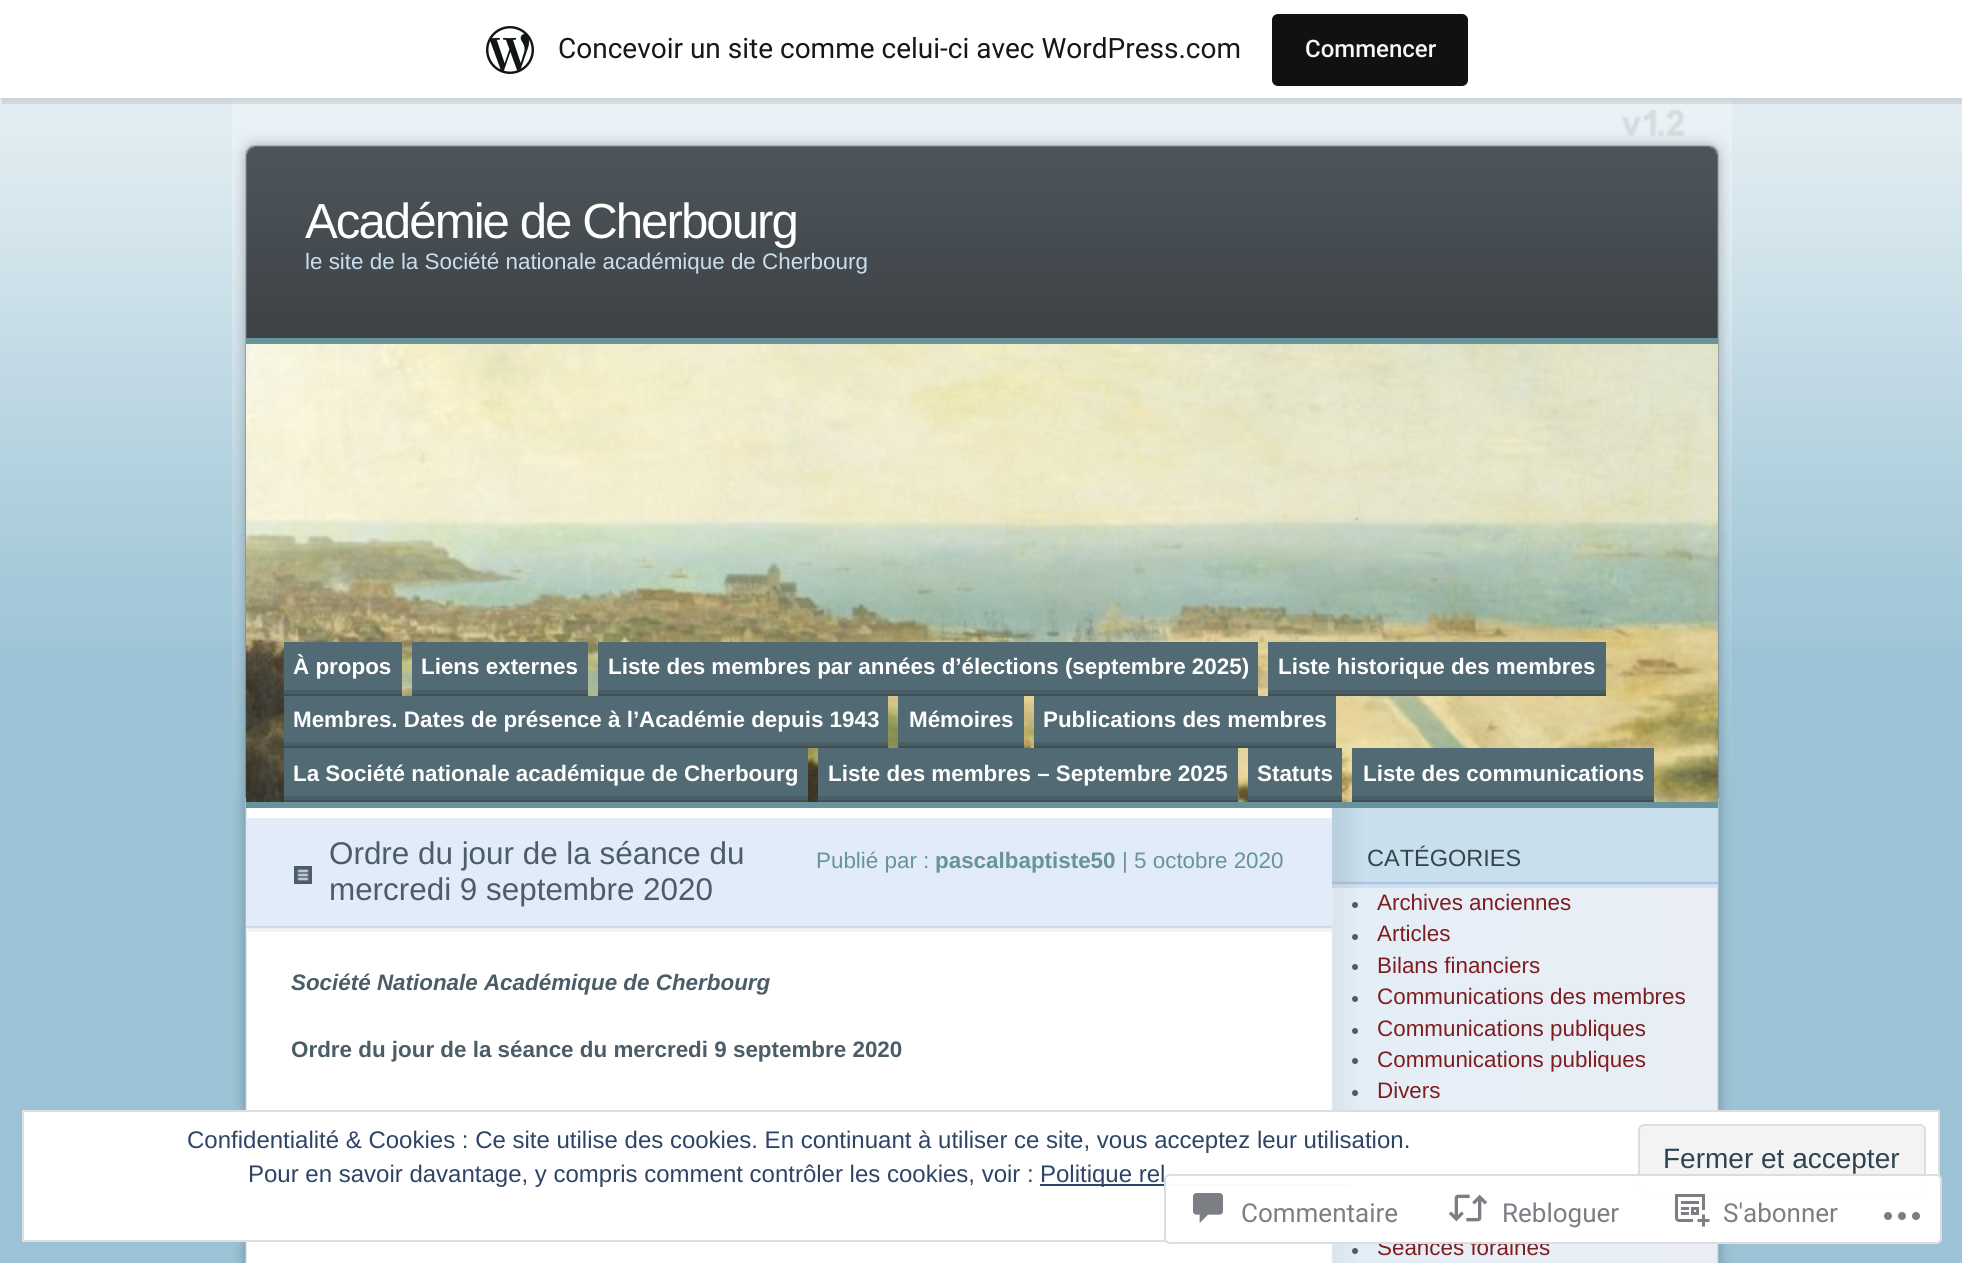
import math
import cairo

surface = cairo.ImageSurface(cairo.FORMAT_RGB24, 1962, 1263)
cr = cairo.Context(surface)
options = cairo.FontOptions()
options.set_hint_metrics(cairo.HINT_METRICS_OFF)
options.set_hint_style(cairo.HINT_STYLE_NONE)
cr.set_font_options(options)
cr.set_miter_limit(4)


def rgb(code):
    cr.set_source_rgb(*(v / 255 for v in bytes.fromhex(code[-6:])))


def tracked(x, y, s, letter, word):
    cr.move_to(x, y)
    for ch in s:
        cr.show_text(ch)
        cr.rel_move_to(letter + word * (ch == ' '), 0)


def rrect(x, y, w, h, r):
    cr.new_sub_path()
    for i, (u, v) in enumerate([(x + w - r, y + h - r), (x + r, y + h - r), (x + r, y + r), (x + w - r, y + r)]):
        cr.arc(u, v, r, i * math.pi / 2, (i + 1) * math.pi / 2)
    cr.close_path()


def soft_shadow(x, y, w, h, r, blur, alpha):
    cr.push_group_with_content(cairo.CONTENT_ALPHA)
    cr.set_operator(cairo.OPERATOR_SOURCE)
    for i in range(15, -16, -2):
        e = blur * i / 6
        if min(w, h) + 2 * e > 0:
            cr.set_source_rgba(0, 0, 0, alpha * math.erfc((i - 1) / 8.5) / 2)
            rrect(x - e, y - e, w + 2 * e, h + 2 * e, max(0, min(r + e + blur * .6, min(w, h) / 2 + e)))
            cr.fill()
    cr.mask(cr.pop_group())


def image(path, x, y, w, h):
    cr.save()
    cr.set_source_surface(cairo.ImageSurface.create_from_png(path), x, y)
    cr.rectangle(x, y, w, h)
    cr.fill()
    cr.restore()


rgb("#9bc3d5")
cr.paint()
image("img/1.png", 0, 98, 1962, 549)
image("img/4.png", 232, 98, 1500, 700)
rgb("#000000")
soft_shadow(0, 2, 1962, 98, 0, 2, 0.05)
cr.set_source_rgba(0, 0, 0, 0.08)
cr.new_path()
cr.move_to(2, 98)
cr.line_to(2, 104)
cr.line_to(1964, 104)
cr.line_to(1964, 6)
cr.line_to(1962, 6)
cr.line_to(1962, 98)
cr.close_path()
cr.fill()
rgb("#ffffff")
cr.rectangle(0, 0, 1962, 98)
cr.fill()
image("img/2.png", 486, 26, 48, 48)
rgb("#111111")
rrect(1272, 14, 196, 72, 6)
cr.fill()
image("img/3.png", 232, 798, 1500, 465)
image("img/5.png", 246, 344, 1472, 458)
for x, y, w, h, color in [
    (246, 338, 1472, 6, "#67939b"),
    (246, 802, 1472, 6, "#67939b"),
    (284, 694, 118, 2, "#414e53"),
    (284, 642, 118, 48, "#526a74"),
    (284, 690, 118, 4, "#4a5e65"),
    (412, 694, 176, 2, "#414e53"),
    (412, 642, 176, 48, "#526a74"),
    (412, 690, 176, 4, "#4a5e65"),
    (598, 694, 660, 2, "#414e53"),
    (598, 642, 660, 48, "#526a74"),
    (598, 690, 660, 4, "#4a5e65"),
    (1268, 694, 338, 2, "#414e53"),
    (1268, 642, 338, 48, "#526a74"),
    (1268, 690, 338, 4, "#4a5e65"),
    (284, 746, 604, 2, "#414e53"),
    (284, 696, 604, 46, "#526a74"),
    (284, 742, 604, 4, "#4a5e65"),
    (898, 746, 126, 2, "#414e53"),
    (898, 696, 126, 46, "#526a74"),
    (898, 742, 126, 4, "#4a5e65"),
    (1034, 746, 302, 2, "#414e53"),
    (1034, 696, 302, 46, "#526a74"),
    (1034, 742, 302, 4, "#4a5e65"),
    (284, 800, 524, 2, "#414e53"),
    (284, 748, 524, 48, "#526a74"),
    (284, 796, 524, 4, "#4a5e65"),
    (818, 800, 420, 2, "#414e53"),
    (818, 748, 420, 48, "#526a74"),
    (818, 796, 420, 4, "#4a5e65"),
    (1248, 800, 94, 2, "#414e53"),
    (1248, 748, 94, 48, "#526a74"),
    (1248, 796, 94, 4, "#4a5e65"),
    (1352, 800, 302, 2, "#414e53"),
    (1352, 748, 302, 48, "#526a74"),
    (1352, 796, 302, 4, "#4a5e65"),
    (246, 818, 1086, 108, "#e2ebf8"),
]:
    rgb(color)
    cr.rectangle(x, y, w, h)
    cr.fill()
image("img/6.png", 246, 926, 1086, 6)
image("img/7.png", 294, 866, 18, 18)
image("img/8.png", 1332, 808, 386, 80)
rgb("#4b5d67")
cr.arc(1355, 905, 3, 0, 2 * math.pi)
cr.fill()
cr.arc(1355, 937, 3, 0, 2 * math.pi)
cr.fill()
cr.arc(1355, 967, 3, 0, 2 * math.pi)
cr.fill()
cr.arc(1355, 999, 3, 0, 2 * math.pi)
cr.fill()
cr.arc(1355, 1031, 3, 0, 2 * math.pi)
cr.fill()
cr.arc(1355, 1061, 3, 0, 2 * math.pi)
cr.fill()
cr.arc(1355, 1093, 3, 0, 2 * math.pi)
cr.fill()
cr.arc(1355, 1251, 3, 0, 2 * math.pi)
cr.fill()
cr.select_font_face("Roboto")
cr.set_font_size(28)
rgb("#171717")
cr.move_to(558, 58)
cr.show_text("Concevoir un site comme celui-ci avec WordPress.com")
cr.select_font_face("Roboto Medium")
cr.set_font_size(24)
rgb("#f6f7f7")
cr.move_to(1305, 57)
cr.show_text("Commencer")
cr.select_font_face("Liberation Sans")
cr.set_font_size(49.25)
rgb("#ffffff")
tracked(305, 238, "Académie de Cherbourg", -2, 0)
cr.set_font_size(22.4)
rgb("#cadfed")
cr.move_to(305, 269)
cr.show_text("le site de la Société nationale académique de Cherbourg")
cr.select_font_face("Liberation Sans", cairo.FONT_SLANT_NORMAL, cairo.FONT_WEIGHT_BOLD)
rgb("#ffffff")
for x, y, s in [
    (293, 674, "À propos"),
    (421, 674, "Liens externes"),
    (608, 674, "Liste des membres par années d’élections (septembre 2025)"),
    (1278, 674, "Liste historique des membres"),
    (293, 727, "Membres. Dates de présence à l’Académie depuis 1943"),
    (909, 727, "Mémoires"),
    (1043, 727, "Publications des membres"),
    (293, 781, "La Société nationale académique de Cherbourg"),
    (828, 781, "Liste des membres – Septembre 2025"),
    (1257, 781, "Statuts"),
    (1363, 781, "Liste des communications"),
]:
    cr.move_to(x, y)
    cr.show_text(s)
cr.select_font_face("Liberation Sans")
cr.set_font_size(31.4)
rgb("#4b5d67")
cr.move_to(329, 864)
cr.show_text("Ordre du jour de la séance du")
cr.move_to(329, 900)
cr.show_text("mercredi 9 septembre 2020")
cr.set_font_size(22.4)
rgb("#67939b")
cr.move_to(816, 868)
cr.show_text("Publié par :")
cr.select_font_face("Liberation Sans", cairo.FONT_SLANT_NORMAL, cairo.FONT_WEIGHT_BOLD)
cr.move_to(935, 868)
cr.show_text("pascalbaptiste50")
cr.select_font_face("Liberation Sans")
cr.move_to(1122, 868)
cr.show_text("| 5 octobre 2020")
cr.select_font_face("Liberation Sans", cairo.FONT_SLANT_ITALIC, cairo.FONT_WEIGHT_BOLD)
rgb("#4b5d67")
cr.move_to(291, 990)
cr.show_text("Société Nationale Académique de Cherbourg")
cr.select_font_face("Liberation Sans", cairo.FONT_SLANT_NORMAL, cairo.FONT_WEIGHT_BOLD)
cr.move_to(291, 1057)
cr.show_text("Ordre du jour de la séance du mercredi 9 septembre 2020")
cr.select_font_face("Liberation Sans")
cr.set_font_size(23.5)
rgb("#32474b")
cr.move_to(1367, 866)
cr.show_text("CATÉGORIES")
cr.set_font_size(22.4)
rgb("#7f1d1d")
for x, y, s in [
    (1377, 910, "Archives anciennes"),
    (1377, 941, "Articles"),
    (1377, 973, "Bilans financiers"),
    (1377, 1004, "Communications des membres"),
    (1377, 1036, "Communications publiques"),
    (1377, 1067, "Communications publiques"),
    (1377, 1098, "Divers"),
    (1377, 1255, "Séances foraines"),
]:
    cr.move_to(x, y)
    cr.show_text(s)
rgb("#ffffff")
cr.rectangle(23, 1111, 1916, 130)
cr.fill_preserve()
rgb("#dedede")
cr.stroke()
cr.set_font_size(24)
rgb("#2e4467")
cr.move_to(187, 1148)
cr.show_text("Confidentialité & Cookies : Ce site utilise des cookies. En continuant à utiliser ce site, vous acceptez leur utilisation.")
cr.move_to(248, 1182)
cr.show_text("Pour en savoir davantage, y compris comment contrôler les cookies, voir :")
cr.rectangle(1040, 1184, 310, 2)
cr.fill()
cr.move_to(1040, 1182)
cr.show_text("Politique rel")
rgb("#f3f3f3")
rrect(1639, 1125, 286, 68, 5)
cr.fill_preserve()
rgb("#dedede")
cr.stroke()
cr.set_font_size(28)
rgb("#2e4453")
cr.move_to(1663, 1168)
cr.show_text("Fermer et accepter")
cr.set_source_rgba(1, 1, 1, 0.98)
rrect(1164, 1174, 778, 70, 6)
cr.fill()
rrect(1165, 1175, 776, 68, 5)
cr.set_source_rgba(0.863, 0.863, 0.871, 0.98)
cr.stroke()
image("img/9.png", 1193, 1193, 30, 30)
cr.select_font_face("Roboto")
cr.set_font_size(26)
rgb("#7b7f85")
cr.move_to(1241, 1222)
cr.show_text("Commentaire")
image("img/10.png", 1448, 1194, 40, 28)
cr.move_to(1502, 1222)
cr.show_text("Rebloguer")
image("img/11.png", 1675, 1194, 35, 33)
cr.move_to(1723, 1222)
cr.show_text("S'abonner")
image("img/12.png", 1884, 1212, 36, 8)
surface.write_to_png("page.png")
